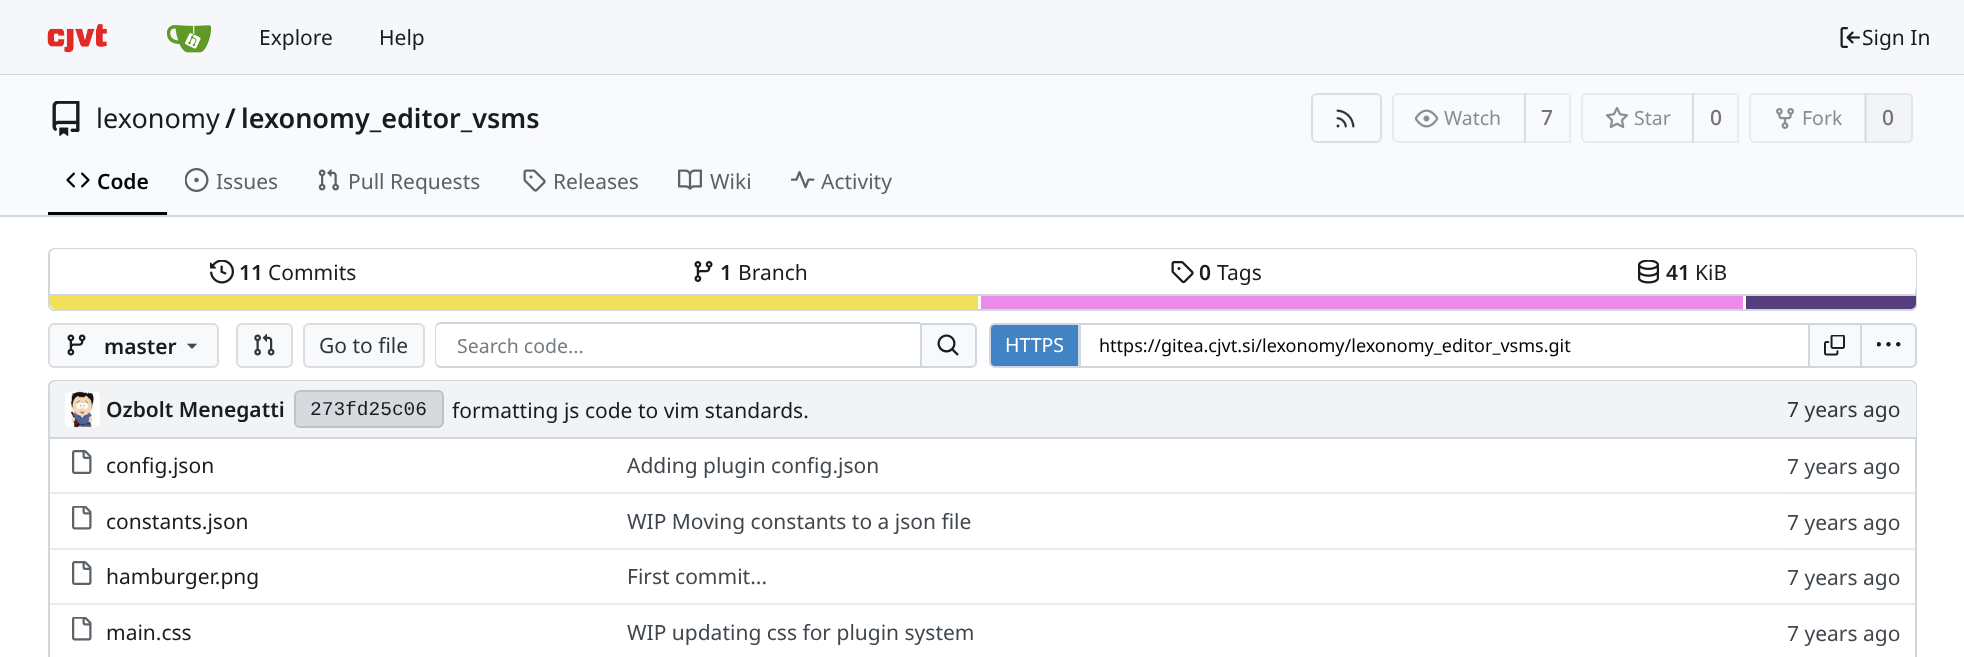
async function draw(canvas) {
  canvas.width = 1964;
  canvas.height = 657;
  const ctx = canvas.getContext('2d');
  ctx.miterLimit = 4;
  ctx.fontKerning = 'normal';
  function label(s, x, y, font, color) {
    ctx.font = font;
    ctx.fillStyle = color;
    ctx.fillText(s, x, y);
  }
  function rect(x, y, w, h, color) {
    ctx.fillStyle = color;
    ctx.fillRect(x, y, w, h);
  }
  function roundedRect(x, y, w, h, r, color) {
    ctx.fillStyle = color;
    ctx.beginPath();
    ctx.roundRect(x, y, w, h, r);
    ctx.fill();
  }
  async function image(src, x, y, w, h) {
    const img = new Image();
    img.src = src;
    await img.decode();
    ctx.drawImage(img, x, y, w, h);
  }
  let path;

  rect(0, 0, 1964, 657, '#fff');
  rect(0, 0, 1964, 74, '#f6f7fa');
  rect(0, 74, 1964, 1, '#d0d7de');
  await image('assets/img1.png', 47, 24, 60, 29);
  await image('assets/img2.png', 167, 25, 45, 28);
  label('Explore', 259, 45, '21px Noto Sans', '#181c21');
  label('Help', 379, 45, '21px Noto Sans', '#181c21');
  await image('assets/img3.png', 1840, 27, 20, 21);
  label('Sign In', 1862, 45, '21px Noto Sans', '#181c21');
  rect(0, 75, 1964, 140, '#f9fafb');
  await image('assets/img4.png', 52, 101, 28, 35);
  label('lexonomy', 96, 128, '27px Noto Sans', '#181c21');
  label('/', 225, 128, '600 27px Noto Sans', '#181c21');
  label('lexonomy_editor_vsms', 241, 128, '600 27px Noto Sans', '#181c21');
  ctx.beginPath();
  ctx.roundRect(1312, 94, 69, 48, 5);
  ctx.strokeStyle = '#dddee1';
  ctx.lineWidth = 2;
  ctx.stroke();
  await image('assets/img5.png', 1336, 109, 19, 19);
  ctx.beginPath();
  ctx.roundRect(1393, 94, 132, 48, [5, 0, 0, 5]);
  ctx.strokeStyle = '#e9eaed';
  ctx.stroke();
  await image('assets/img6.png', 1415, 109, 24, 19);
  label('Watch', 1444, 125, '19.5px Noto Sans', '#8a8e91');
  ctx.strokeStyle = '#0000170f';
  ctx.strokeRect(1525, 94, 45, 48);
  label('7', 1541, 125, '500 21px Noto Sans', '#717376');
  ctx.beginPath();
  ctx.roundRect(1582, 94, 111, 48, [5, 0, 0, 5]);
  ctx.strokeStyle = '#e9eaed';
  ctx.stroke();
  await image('assets/img7.png', 1605, 107, 24, 22);
  label('Star', 1634, 125, '19.5px Noto Sans', '#8a8e91');
  ctx.strokeStyle = '#0000170f';
  ctx.strokeRect(1693, 94, 45, 48);
  label('0', 1710, 125, '500 21px Noto Sans', '#717376');
  ctx.beginPath();
  ctx.roundRect(1750, 94, 115, 48, [5, 0, 0, 5]);
  ctx.strokeStyle = '#e9eaed';
  ctx.stroke();
  await image('assets/img8.png', 1776, 108, 18, 21);
  label('Fork', 1802, 125, '19.5px Noto Sans', '#8a8e91');
  rect(1865, 93, 48, 50, '#7071710a');
  ctx.beginPath();
  ctx.roundRect(1866, 94, 46, 48, [0, 5, 5, 0]);
  ctx.strokeStyle = '#70717e1c';
  ctx.stroke();
  label('0', 1882, 125, '500 21px Noto Sans', '#717376');
  rect(48, 212, 119, 3, '#01050a');
  await image('assets/img9.png', 66, 172, 24, 16);
  label('Code', 97, 189, '600 21px Noto Sans', '#01050a');
  await image('assets/img10.png', 185, 168, 24, 24);
  label('Issues', 216, 189, '21px Noto Sans', '#5b6167');
  await image('assets/img11.png', 318, 169, 21, 22);
  label('Pull Requests', 348, 189, '21px Noto Sans', '#5b6167');
  await image('assets/img12.png', 523, 169, 23, 23);
  label('Releases', 553, 189, '21px Noto Sans', '#5b6167');
  await image('assets/img13.png', 678, 169, 24, 21);
  label('Wiki', 710, 189, '21px Noto Sans', '#5b6167');
  await image('assets/img14.png', 791, 171, 24, 18);
  label('Activity', 821, 189, '21px Noto Sans', '#5b6167');
  rect(0, 215, 1964, 2, '#d0d7de');
  ctx.beginPath();
  ctx.roundRect(49, 249, 1867, 61, 5);
  ctx.strokeStyle = '#d0d7de';
  ctx.stroke();
  roundedRect(50, 249, 1866, 45, 6, '#fff');
  await image('assets/img15.png', 210, 260, 24, 24);
  label('11', 239, 280, '600 21px Noto Sans', '#181c21');
  label('Commits', 268, 280, '21px Noto Sans', '#181c21');
  await image('assets/img16.png', 694, 261, 19, 21);
  label('1', 720, 280, '600 21px Noto Sans', '#181c21');
  label('Branch', 738, 280, '21px Noto Sans', '#181c21');
  await image('assets/img17.png', 1171, 261, 23, 23);
  label('0', 1199, 280, '600 21px Noto Sans', '#181c21');
  label('Tags', 1217, 280, '21px Noto Sans', '#181c21');
  await image('assets/img18.png', 1638, 260, 21, 24);
  label('41', 1666, 280, '600 21px Noto Sans', '#181c21');
  label('KiB', 1695, 280, '21px Noto Sans', '#181c21');
  ctx.fillStyle = '#fff';
  ctx.beginPath();
  ctx.roundRect(50, 294, 1866, 15, [0, 0, 5, 5]);
  ctx.fill();
  rect(50, 294, 1866, 2, '#d0d7de');
  ctx.fillStyle = '#f1e05a';
  ctx.beginPath();
  ctx.roundRect(50, 296, 928, 13, [0, 0, 0, 5]);
  ctx.fill();
  rect(981, 296, 762, 13, '#eb8ceb');
  ctx.fillStyle = '#563d7c';
  ctx.beginPath();
  ctx.roundRect(1746, 296, 170, 13, [0, 0, 5, 0]);
  ctx.fill();
  ctx.fillStyle = '#f8f9fb';
  ctx.beginPath();
  ctx.roundRect(49, 324, 169, 43, 5);
  ctx.fill();
  ctx.strokeStyle = '#dcdde1';
  ctx.stroke();
  await image('assets/img19.png', 67, 334, 19, 22);
  label('master', 104, 354, '600 21px Noto Sans', '#181c21');
  await image('assets/img20.png', 187, 343, 10, 6);
  ctx.fillStyle = '#f8f9fb';
  ctx.beginPath();
  ctx.roundRect(237, 324, 55, 43, 5);
  ctx.fill();
  ctx.stroke();
  await image('assets/img21.png', 254, 334, 21, 22);
  ctx.beginPath();
  ctx.roundRect(304, 324, 120, 43, 5);
  ctx.fill();
  ctx.stroke();
  label('Go to file', 319, 353, '21px Noto Sans', '#30363b');
  ctx.fillStyle = '#d0d7de';
  path = new Path2D('M441 322H920V368H441C438 368 435 365 435 362V328C435 325 438 322 441 322ZM441 324H920V366H441C439 366 436 364 436 362V328C436 326 439 324 441 324Z');
  ctx.fill(path, 'evenodd');
  label('Search code...', 457, 353, '19.5px Noto Sans', '#747c84');
  ctx.fillStyle = '#f8f9fb';
  ctx.beginPath();
  ctx.roundRect(921, 324, 55, 43, [0, 5, 5, 0]);
  ctx.fill();
  ctx.strokeStyle = '#d0d7de';
  ctx.stroke();
  await image('assets/img22.png', 937, 334, 22, 22);
  ctx.fillStyle = '#4183c4';
  ctx.beginPath();
  ctx.roundRect(990, 324, 89, 43, [5, 0, 0, 5]);
  ctx.fill();
  ctx.stroke();
  label('HTTPS', 1005, 352, '19.5px Noto Sans', '#fff');
  rect(1079, 323, 729, 2, '#d0d7de');
  rect(1079, 366, 729, 2, '#d0d7de');
  rect(1080, 323, 1, 45, '#d0d7de');
  label('https://gitea.cjvt.si/lexonomy/lexonomy_editor_vsms.git', 1099, 352, '18px Noto Sans', '#01050a');
  ctx.fillStyle = '#f8f9fb';
  ctx.beginPath();
  ctx.rect(1809, 324, 52, 43);
  ctx.fill();
  ctx.stroke();
  await image('assets/img23.png', 1824, 335, 21, 21);
  ctx.beginPath();
  ctx.roundRect(1861, 324, 55, 43, [0, 5, 5, 0]);
  ctx.fill();
  ctx.stroke();
  await image('assets/img24.png', 1877, 342, 24, 5);
  ctx.beginPath();
  ctx.roundRect(49, 381, 1867, 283, 5);
  ctx.stroke();
  ctx.fillStyle = '#f1f3f5';
  ctx.beginPath();
  ctx.roundRect(50, 381, 1729, 57, [6, 0, 0, 0]);
  ctx.fill();
  rect(50, 437, 1729, 2, '#d0d7de');
  await image('assets/img25.png', 65, 391, 35, 37);
  label('Ozbolt Menegatti', 106, 417, '600 21px Noto Sans', '#181c21');
  roundedRect(294, 390, 150, 38, 6, '#d6dade');
  ctx.beginPath();
  ctx.roundRect(295, 391, 148, 36, 5);
  ctx.strokeStyle = '#0000171c';
  ctx.stroke();
  label('273fd25c06', 310, 415, '19.5px Liberation Mono', '#181c21');
  label('formatting js code to vim standards.', 452, 418, '21px Noto Sans', '#181c21');
  ctx.fillStyle = '#f1f3f5';
  ctx.beginPath();
  ctx.roundRect(1779, 381, 137, 57, [0, 6, 0, 0]);
  ctx.fill();
  rect(1779, 437, 137, 2, '#d0d7de');
  label('7 years ago', 1787, 417, '21px Noto Sans', '#30363b');
  await image('assets/img26.png', 72, 450, 20, 24);
  label('config.json', 106, 473, '21px Noto Sans', '#181c21');
  label('Adding plugin config.json', 627, 473, '21px Noto Sans', '#40474d');
  label('7 years ago', 1787, 474, '21px Noto Sans', '#40474d');
  rect(50, 492, 1729, 2, '#e8ebef');
  await image('assets/img27.png', 72, 506, 20, 24);
  label('constants.json', 106, 529, '21px Noto Sans', '#181c21');
  label('WIP Moving constants to a json file', 627, 529, '21px Noto Sans', '#40474d');
  rect(1779, 492, 137, 2, '#d0d7de80');
  label('7 years ago', 1787, 530, '21px Noto Sans', '#40474d');
  rect(50, 548, 1729, 2, '#e8ebef');
  await image('assets/img26.png', 72, 561, 20, 24);
  label('hamburger.png', 106, 584, '21px Noto Sans', '#181c21');
  label('First commit...', 627, 584, '21px Noto Sans', '#40474d');
  rect(1779, 548, 137, 2, '#d0d7de80');
  label('7 years ago', 1787, 585, '21px Noto Sans', '#40474d');
  rect(50, 603, 1729, 2, '#e8ebef');
  await image('assets/img27.png', 72, 617, 20, 24);
  label('main.css', 106, 640, '21px Noto Sans', '#181c21');
  label('WIP updating css for plugin system', 627, 640, '21px Noto Sans', '#40474d');
  rect(1779, 603, 137, 2, '#d0d7de80');
  label('7 years ago', 1787, 641, '21px Noto Sans', '#40474d');
}

draw(document.querySelector('canvas'));
